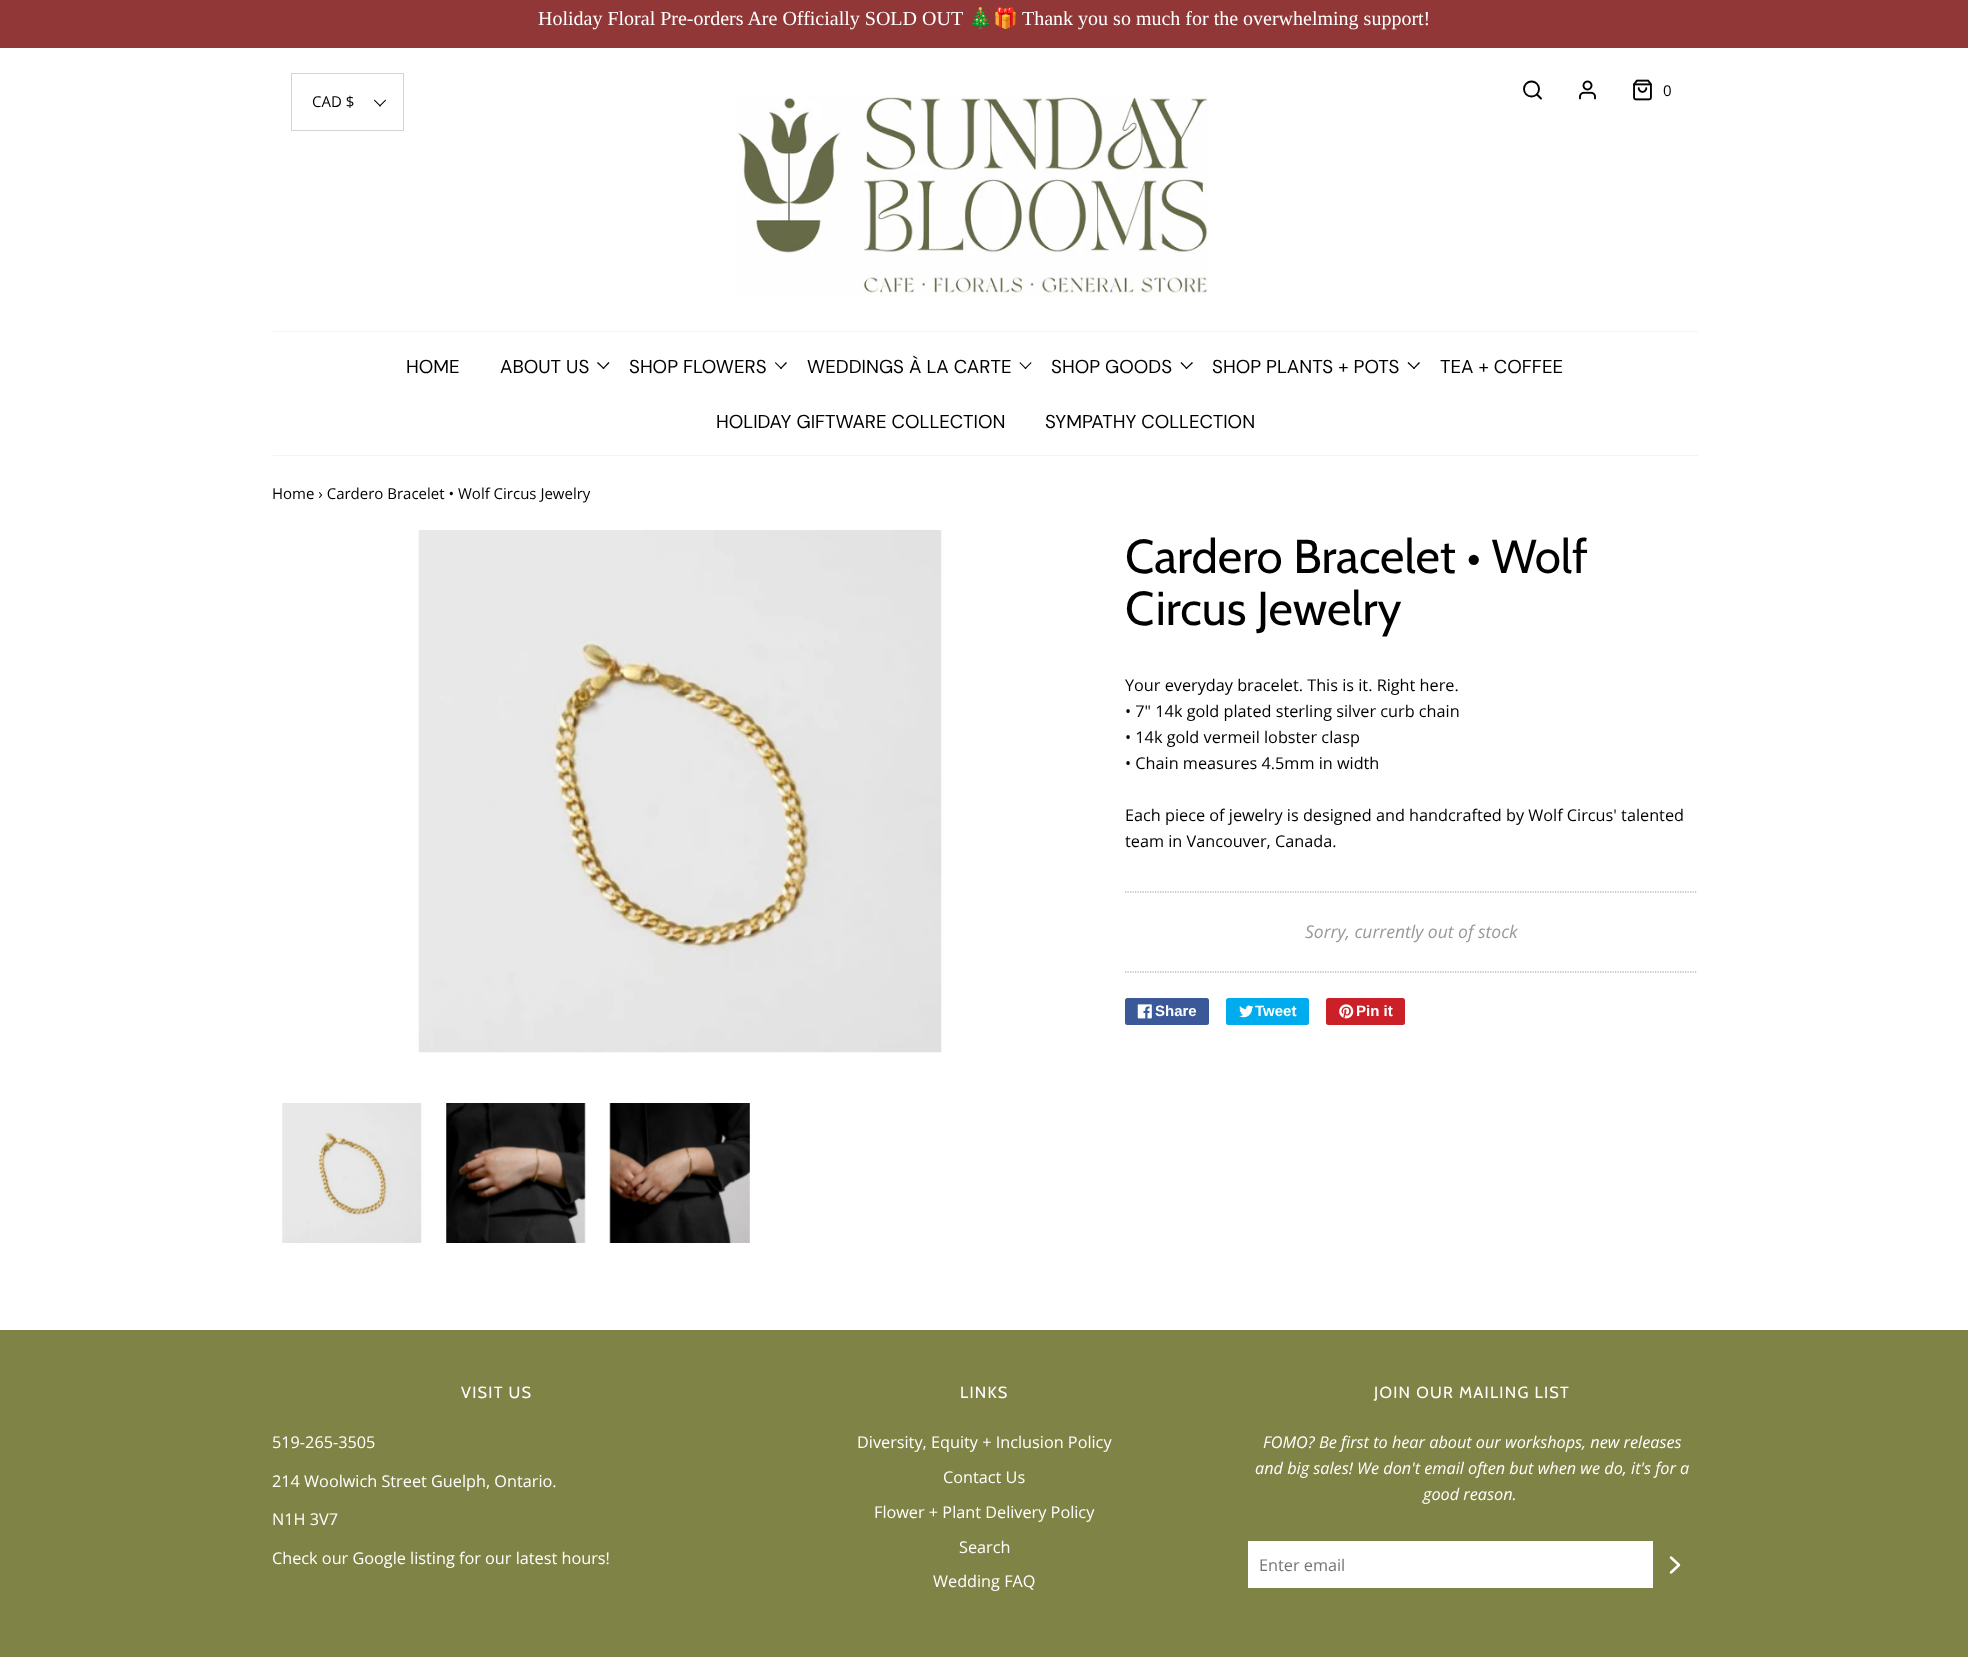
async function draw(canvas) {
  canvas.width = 1968;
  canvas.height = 1657;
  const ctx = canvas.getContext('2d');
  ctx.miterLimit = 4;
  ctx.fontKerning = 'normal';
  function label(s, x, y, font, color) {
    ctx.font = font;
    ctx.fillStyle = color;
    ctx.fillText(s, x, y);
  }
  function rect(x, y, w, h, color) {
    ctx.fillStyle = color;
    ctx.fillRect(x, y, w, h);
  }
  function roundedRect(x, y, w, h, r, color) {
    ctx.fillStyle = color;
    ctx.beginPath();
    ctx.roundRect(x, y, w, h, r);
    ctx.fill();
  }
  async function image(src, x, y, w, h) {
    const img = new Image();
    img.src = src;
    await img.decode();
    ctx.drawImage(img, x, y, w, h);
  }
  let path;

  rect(0, 0, 1968, 1657, '#fff');
  rect(0, 0, 1968, 48, '#923737');
  label('Holiday Floral Pre-orders Are Officially SOLD OUT', 538, 25, '20px Liberation Serif', '#fff');
  label('🎄🎁', 968, 25, '20px Noto Color Emoji', '#fff');
  label('Thank you so much for the overwhelming support!', 1022, 25, '20px Liberation Serif', '#fff');
  ctx.beginPath();
  ctx.arc(1531.5, 89, 7.5, 0, 2 * Math.PI);
  ctx.strokeStyle = '#000';
  ctx.lineWidth = 1.9;
  ctx.stroke();
  path = new Path2D('M1541 98.5L1537 94.5');
  ctx.lineCap = 'round';
  ctx.lineJoin = 'round';
  ctx.stroke(path);
  await image('assets/img1.png', 1579, 80, 17, 20);
  await image('assets/img2.png', 1633, 79, 19, 22);
  label('0', 1663, 96, '15px Open Sans', '#000');
  ctx.strokeStyle = '#d4d4d4';
  ctx.lineWidth = 1;
  ctx.lineJoin = 'miter';
  ctx.strokeRect(291.5, 73.5, 112, 57);
  ctx.save();
  ctx.beginPath();
  ctx.rect(313, 90, 70, 24);
  ctx.clip();
  label('CAD $', 312, 107, '15px Open Sans', '#000');
  ctx.restore();
  path = new Path2D('M385.5 99.5L386 100.5L380 106.5L379 106Z');
  ctx.fill(path);
  path = new Path2D('M374.5 99.5L381 106L380 106.5L374 100.5Z');
  ctx.fill(path);
  await image('assets/img3.png', 737, 95, 472, 201);
  rect(273, 331, 1425, 1, '#f3f3f3');
  rect(273, 455, 1425, 1, '#f3f3f3');
  label('HOME', 406, 373, '18.75px DM Sans', '#000');
  label('ABOUT US', 500, 373, '18.75px DM Sans', '#000');
  path = new Path2D('M608.5 362L609.5 363L603.5 369L602.5 368.5Z');
  ctx.fill(path);
  path = new Path2D('M598 362L604.5 368.5L603.5 369L597 363Z');
  ctx.fill(path);
  label('SHOP FLOWERS', 629, 373, '18.75px DM Sans', '#000');
  path = new Path2D('M786 362L787 363L781 369L780 368.5Z');
  ctx.fill(path);
  path = new Path2D('M775.5 362L782 368.5L781 369L775 363Z');
  ctx.fill(path);
  label('WEDDINGS À LA CARTE', 807, 373, '18.75px DM Sans', '#000');
  path = new Path2D('M1031 362L1031.5 363L1025.5 369L1024.5 368.5Z');
  ctx.fill(path);
  path = new Path2D('M1020 362L1026.5 368.5L1025.5 369L1019.5 363Z');
  ctx.fill(path);
  label('SHOP GOODS', 1051, 373, '18.75px DM Sans', '#000');
  path = new Path2D('M1192 362L1193 363L1186.5 369L1185.5 368.5Z');
  ctx.fill(path);
  path = new Path2D('M1181.5 362L1187.5 368.5L1186.5 369L1180.5 363Z');
  ctx.fill(path);
  label('SHOP PLANTS + POTS', 1212, 373, '18.75px DM Sans', '#000');
  path = new Path2D('M1419 362L1420 363L1414 369L1413 368.5Z');
  ctx.fill(path);
  path = new Path2D('M1408.5 362L1415 368.5L1414 369L1407.5 363Z');
  ctx.fill(path);
  label('TEA + COFFEE', 1440, 373, '18.75px DM Sans', '#000');
  label('HOLIDAY GIFTWARE COLLECTION', 716, 428, '18.75px DM Sans', '#000');
  label('SYMPATHY COLLECTION', 1045, 428, '18.75px DM Sans', '#000');
  label('Home › Cardero Bracelet • Wolf Circus Jewelry', 272, 499, '15px Open Sans', '#000');
  await image('assets/img4.png', 418, 530, 524, 523);
  await image('assets/img5.png', 282, 1103, 140, 140);
  await image('assets/img6.png', 446, 1103, 140, 140);
  await image('assets/img7.png', 609, 1103, 141, 140);
  label('Cardero Bracelet • Wolf', 1125, 573, '47.5px Cabin', '#000');
  label('Circus Jewelry', 1125, 625, '47.5px Cabin', '#000');
  label('Your everyday bracelet. This is it. Right here.', 1125, 691, '16.25px Open Sans', '#000');
  label('• 7" 14k gold plated sterling silver curb chain', 1125, 717, '16.25px Open Sans', '#000');
  label('• 14k gold vermeil lobster clasp', 1125, 743, '16.25px Open Sans', '#000');
  label('• Chain measures 4.5mm in width', 1125, 769, '16.25px Open Sans', '#000');
  label('Each piece of jewelry is designed and handcrafted by Wolf Circus\' talented', 1125, 821, '16.25px Open Sans', '#000');
  label('team in Vancouver, Canada.', 1125, 847, '16.25px Open Sans', '#000');
  path = new Path2D('M1125 892H1697.5');
  ctx.strokeStyle = '#999';
  ctx.lineWidth = 1.2;
  ctx.lineCap = 'butt';
  ctx.setLineDash([1.25, 1.25]);
  ctx.stroke(path);
  path = new Path2D('M1125 972H1697.5');
  ctx.stroke(path);
  label('Sorry, currently out of stock', 1305, 938, 'italic 17.5px Open Sans', '#999');
  roundedRect(1125, 998, 84, 27, 2.5, '#3b5998');
  await image('assets/img8.png', 1137, 1004, 15, 15);
  label('Share', 1155, 1016, 'bold 15px Liberation Sans', '#fff');
  roundedRect(1226, 998, 83, 27, 2.5, '#00aced');
  await image('assets/img9.png', 1239, 1005, 15, 13);
  label('Tweet', 1255, 1016, 'bold 15px Liberation Sans', '#fff');
  roundedRect(1326, 998, 79, 27, 2.5, '#cb2027');
  await image('assets/img10.png', 1339, 1004, 15, 15);
  label('Pin it', 1356, 1016, 'bold 15px Liberation Sans', '#fff');
  rect(0, 1330, 1968, 327, '#7f8345');
  ctx.letterSpacing = '1.25px';
  label('VISIT US', 461, 1398, '16.25px Cabin', '#fff');
  ctx.letterSpacing = '0px';
  label('519-265-3505', 272, 1448, '16.25px Open Sans', '#fff');
  label('214 Woolwich Street Guelph, Ontario.', 272, 1487, '16.25px Open Sans', '#fff');
  label('N1H 3V7', 272, 1525, '16.25px Open Sans', '#fff');
  label('Check our Google listing for our latest hours!', 272, 1564, '16.25px Open Sans', '#fff');
  ctx.letterSpacing = '1.25px';
  label('LINKS', 960, 1398, '16.25px Cabin', '#fff');
  ctx.letterSpacing = '0px';
  label('Diversity, Equity + Inclusion Policy', 857, 1448, '16.25px Open Sans', '#fff');
  label('Contact Us', 943, 1483, '16.25px Open Sans', '#fff');
  label('Flower + Plant Delivery Policy', 874, 1518, '16.25px Open Sans', '#fff');
  label('Search', 959, 1553, '16.25px Open Sans', '#fff');
  label('Wedding FAQ', 933, 1587, '16.25px Open Sans', '#fff');
  ctx.letterSpacing = '1.25px';
  label('JOIN OUR MAILING LIST', 1374, 1398, '16.25px Cabin', '#fff');
  ctx.letterSpacing = '0px';
  label('FOMO? Be first to hear about our workshops, new releases', 1263, 1448, 'italic 16.25px Open Sans', '#fff');
  label('and big sales! We don\'t email often but when we do, it\'s for a', 1255, 1474, 'italic 16.25px Open Sans', '#fff');
  label('good reason.', 1423, 1500, 'italic 16.25px Open Sans', '#fff');
  rect(1248, 1541, 405, 47, '#fff');
  label('Enter email', 1259, 1571, '16.25px Open Sans', '#757575');
  path = new Path2D('M1671 1572.5L1679 1565L1671 1557.5');
  ctx.strokeStyle = '#fff';
  ctx.lineWidth = 2.5;
  ctx.lineCap = 'round';
  ctx.lineJoin = 'round';
  ctx.setLineDash([]);
  ctx.stroke(path);
}

draw(document.querySelector('canvas'));
